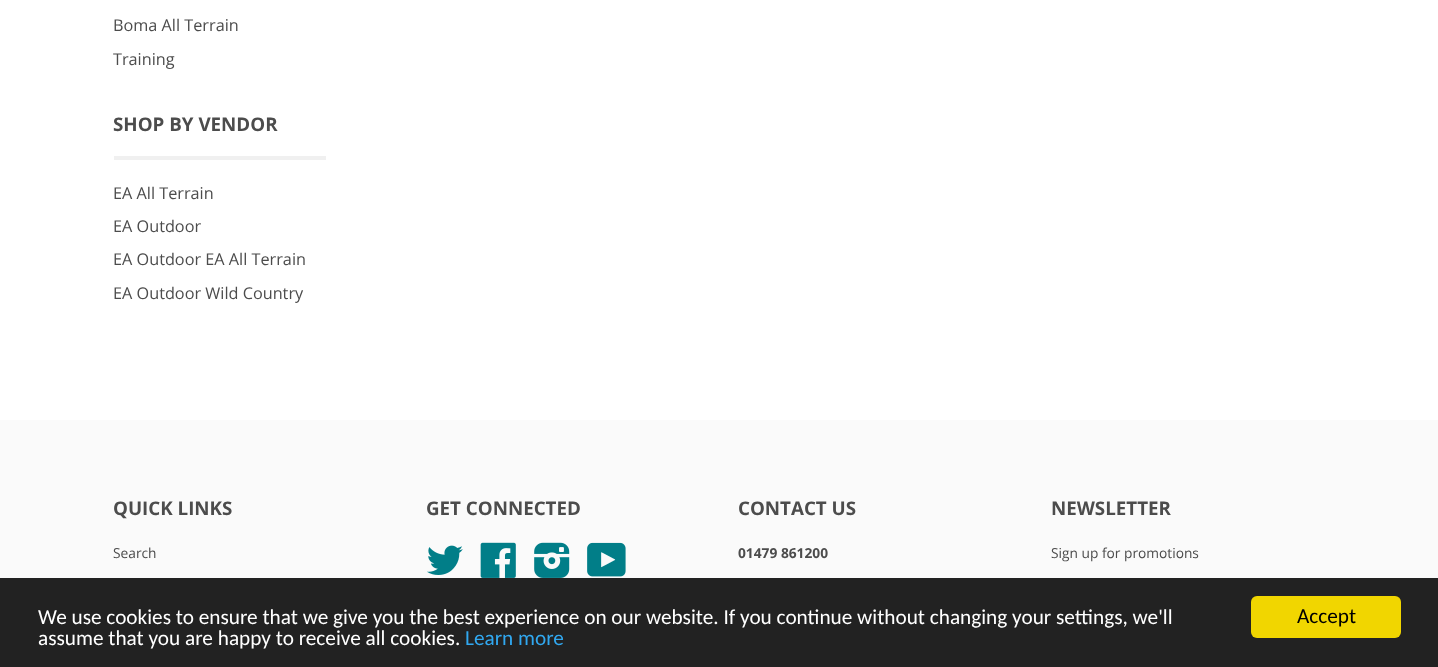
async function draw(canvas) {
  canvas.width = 1438;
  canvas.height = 667;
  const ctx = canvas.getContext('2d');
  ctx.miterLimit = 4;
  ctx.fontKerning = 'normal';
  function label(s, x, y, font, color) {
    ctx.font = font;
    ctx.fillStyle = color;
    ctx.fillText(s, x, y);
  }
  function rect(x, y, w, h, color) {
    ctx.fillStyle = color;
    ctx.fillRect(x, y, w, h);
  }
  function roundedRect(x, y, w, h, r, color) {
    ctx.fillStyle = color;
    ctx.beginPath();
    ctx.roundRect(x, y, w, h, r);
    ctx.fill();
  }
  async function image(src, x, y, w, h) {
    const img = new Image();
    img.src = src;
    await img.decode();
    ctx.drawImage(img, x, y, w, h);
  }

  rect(0, 0, 1438, 667, '#fff');
  label('Boma All Terrain', 113, 31, '16.25px Open Sans', '#4c4c4c');
  label('Training', 113, 65, '16.25px Open Sans', '#4c4c4c');
  rect(114, 156, 212, 4, '#f0f0f0');
  label('SHOP BY VENDOR', 113, 131, 'bold 18.75px Open Sans', '#4c4c4c');
  label('EA All Terrain', 113, 199, '16.25px Open Sans', '#4c4c4c');
  label('EA Outdoor', 113, 232, '16.25px Open Sans', '#4c4c4c');
  label('EA Outdoor EA All Terrain', 113, 265, '16.25px Open Sans', '#4c4c4c');
  label('EA Outdoor Wild Country', 113, 299, '16.25px Open Sans', '#4c4c4c');
  rect(0, 420, 1438, 158, '#fafafa');
  label('QUICK LINKS', 113, 515, 'bold 18.75px Open Sans', '#4c4c4c');
  label('Search', 113, 558, '13.75px Open Sans', '#4c4c4c');
  label('GET CONNECTED', 426, 515, 'bold 18.75px Open Sans', '#4c4c4c');
  await image('assets/img1.png', 427, 545, 36, 30);
  await image('assets/img2.png', 480, 542, 36, 36);
  await image('assets/img3.png', 534, 542, 36, 36);
  await image('assets/img4.png', 587, 542, 39, 35);
  label('CONTACT US', 738, 515, 'bold 18.75px Open Sans', '#4c4c4c');
  label('01479 861200', 738, 558, 'bold 13.75px Open Sans', '#4c4c4c');
  label('NEWSLETTER', 1051, 515, 'bold 18.75px Open Sans', '#4c4c4c');
  label('Sign up for promotions', 1051, 558, '13.75px Open Sans', '#4c4c4c');
  rect(0, 578, 1438, 89, '#222');
  label('We use cookies to ensure that we give you the best experience on our website. If you continue without changing your settings, we\'ll', 38, 624, '21.25px Carlito', '#fff');
  label('assume that you are happy to receive all cookies.', 38, 645, '21.25px Carlito', '#fff');
  label('Learn more', 465, 645, '21.25px Carlito', '#31a8f0');
  roundedRect(1251, 596, 150, 42, 6, '#f1d600');
  label('Accept', 1297, 623, '21.25px Carlito', '#000');
}

draw(document.querySelector('canvas'));
